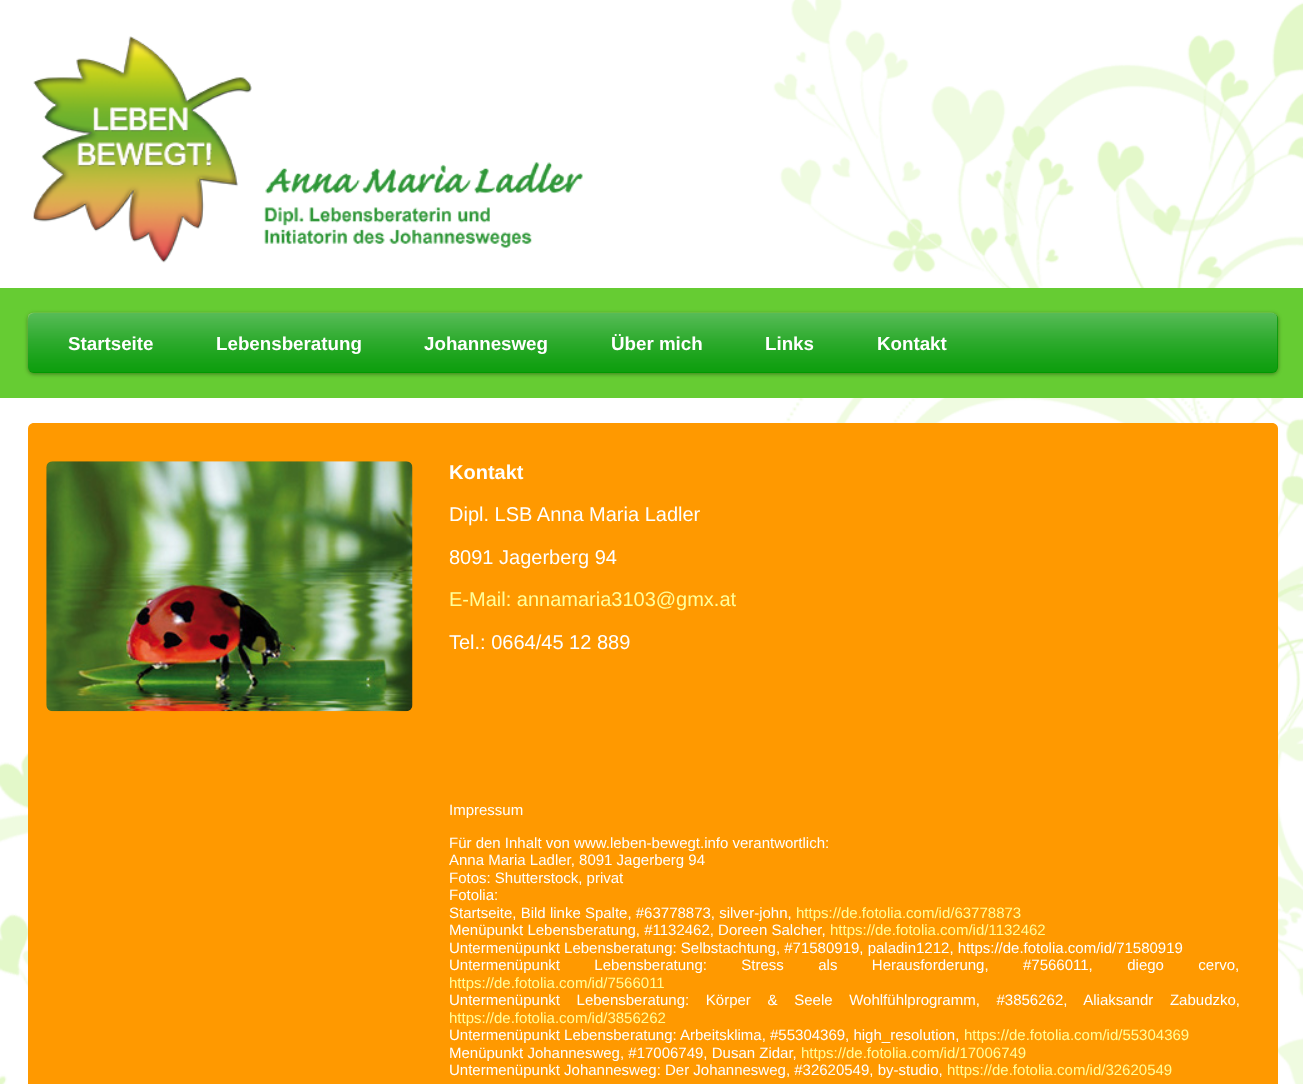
async function draw(canvas) {
  canvas.width = 1303;
  canvas.height = 1084;
  const ctx = canvas.getContext('2d');
  ctx.miterLimit = 4;
  ctx.fontKerning = 'normal';
  function label(s, x, y, font, color) {
    ctx.font = font;
    ctx.fillStyle = color;
    ctx.fillText(s, x, y);
  }
  function rect(x, y, w, h, color) {
    ctx.fillStyle = color;
    ctx.fillRect(x, y, w, h);
  }
  function roundedRect(x, y, w, h, r, color) {
    ctx.fillStyle = color;
    ctx.beginPath();
    ctx.roundRect(x, y, w, h, r);
    ctx.fill();
  }
  async function image(src, x, y, w, h) {
    const img = new Image();
    img.src = src;
    await img.decode();
    ctx.drawImage(img, x, y, w, h);
  }
  let path;

  rect(0, 0, 1303, 1084, '#fff');
  await image('assets/img1.png', 0, 0, 1303, 1084);
  await image('assets/img2.png', 33, 36, 550, 227);
  rect(0, 288, 1303, 110, '#6c3');
  ctx.fillStyle = '#00000066';
  ctx.filter = 'blur(2px)';
  ctx.beginPath();
  ctx.roundRect(28, 314, 1250, 60, 6);
  ctx.fill();
  ctx.filter = 'none';
  roundedRect(28, 313, 1250, 60, 6, '#090');
  await image('assets/img3.png', 27, 312, 1251, 60);
  label('Startseite', 68, 350, 'bold 18.75px Liberation Sans', '#fff');
  label('Lebensberatung', 216, 350, 'bold 18.75px Liberation Sans', '#fff');
  label('Johannesweg', 424, 350, 'bold 18.75px Liberation Sans', '#fff');
  label('Über mich', 611, 350, 'bold 18.75px Liberation Sans', '#fff');
  label('Links', 765, 350, 'bold 18.75px Liberation Sans', '#fff');
  label('Kontakt', 877, 350, 'bold 18.75px Liberation Sans', '#fff');
  ctx.fillStyle = '#f90';
  path = new Path2D('M34 423H431V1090H34C30.5 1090 28 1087.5 28 1084V429C28 425.5 30.5 423 34 423Z');
  ctx.fill(path);
  await image('assets/img4.png', 46, 461, 367, 251);
  path = new Path2D('M431 423H1272C1275.5 423 1278 425.5 1278 429V1084C1278 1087.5 1275.5 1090 1272 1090H431Z');
  ctx.fill(path);
  label('Kontakt', 449, 479, 'bold 20px Liberation Sans', '#fff');
  label('Dipl. LSB Anna Maria Ladler', 449, 521, '20px Liberation Sans', '#fff');
  label('8091 Jagerberg 94', 449, 564, '20px Liberation Sans', '#fff');
  label('E-Mail: annamaria3103@gmx.at', 449, 606, '20px Liberation Sans', '#ff9');
  label('Tel.: 0664/45 12 889', 449, 649, '20px Liberation Sans', '#fff');
  label('Impressum', 449, 815, '15px Liberation Sans', '#fff');
  label('Für den Inhalt von www.leben-bewegt.info verantwortlich:', 449, 848, '15px Liberation Sans', '#fff');
  label('Anna Maria Ladler, 8091 Jagerberg 94', 449, 865, '15px Liberation Sans', '#fff');
  label('Fotos: Shutterstock, privat', 449, 883, '15px Liberation Sans', '#fff');
  label('Fotolia:', 449, 900, '15px Liberation Sans', '#fff');
  label('Startseite, Bild linke Spalte, #63778873, silver-john,', 449, 918, '15px Liberation Sans', '#fff');
  label('https://de.fotolia.com/id/63778873', 796, 918, '15px Liberation Sans', '#ff9');
  label('Menüpunkt Lebensberatung, #1132462, Doreen Salcher,', 449, 935, '15px Liberation Sans', '#fff');
  label('https://de.fotolia.com/id/1132462', 830, 935, '15px Liberation Sans', '#ff9');
  label('Untermenüpunkt Lebensberatung: Selbstachtung, #71580919, paladin1212, https://de.fotolia.com/id/71580919', 449, 953, '15px Liberation Sans', '#fff');
  ctx.wordSpacing = '30.25px';
  label('Untermenüpunkt Lebensberatung: Stress als Herausforderung, #7566011, diego cervo,', 449, 970, '15px Liberation Sans', '#fff');
  ctx.wordSpacing = '0px';
  label('https://de.fotolia.com/id/7566011', 449, 988, '15px Liberation Sans', '#ff9');
  ctx.wordSpacing = '12.5px';
  label('Untermenüpunkt Lebensberatung: Körper & Seele Wohlfühlprogramm, #3856262, Aliaksandr Zabudzko,', 449, 1005, '15px Liberation Sans', '#fff');
  ctx.wordSpacing = '0px';
  label('https://de.fotolia.com/id/3856262', 449, 1023, '15px Liberation Sans', '#ff9');
  label('Untermenüpunkt Lebensberatung: Arbeitsklima, #55304369, high_resolution,', 449, 1040, '15px Liberation Sans', '#fff');
  label('https://de.fotolia.com/id/55304369', 964, 1040, '15px Liberation Sans', '#ff9');
  label('Menüpunkt Johannesweg, #17006749, Dusan Zidar,', 449, 1058, '15px Liberation Sans', '#fff');
  label('https://de.fotolia.com/id/17006749', 801, 1058, '15px Liberation Sans', '#ff9');
  label('Untermenüpunkt Johannesweg: Der Johannesweg, #32620549, by-studio,', 449, 1075, '15px Liberation Sans', '#fff');
  label('https://de.fotolia.com/id/32620549', 947, 1075, '15px Liberation Sans', '#ff9');
}

draw(document.querySelector('canvas'));
